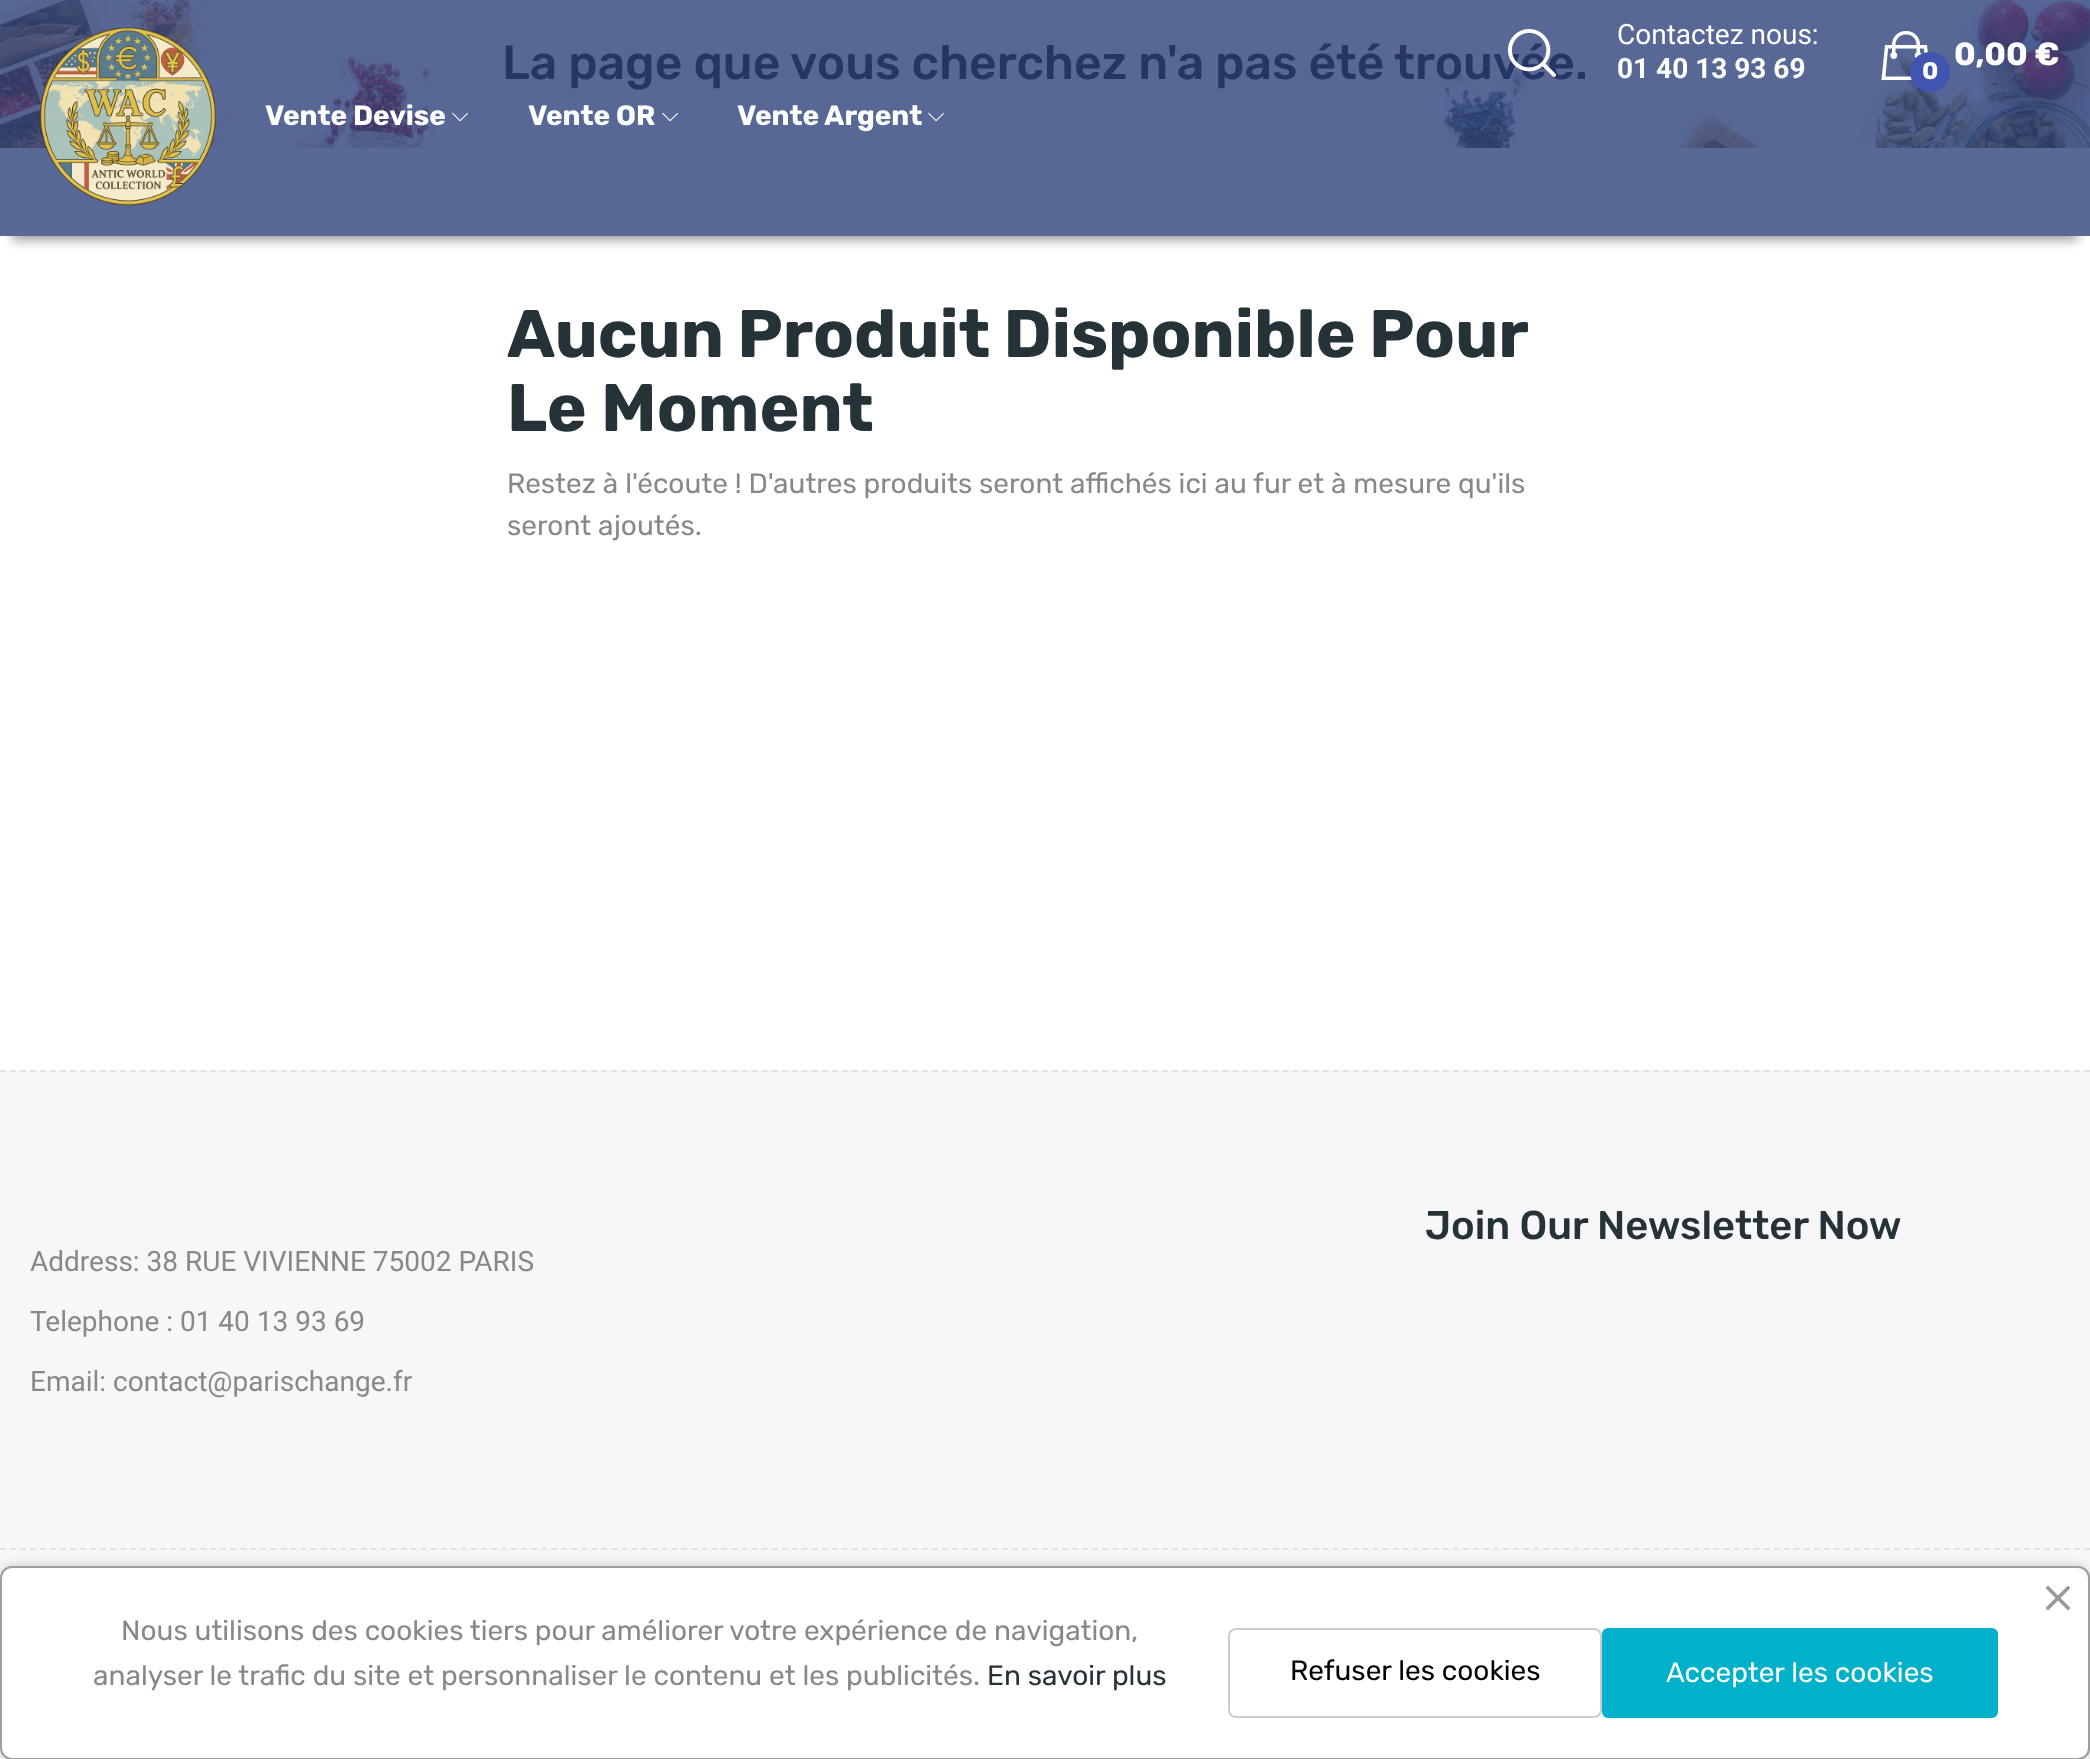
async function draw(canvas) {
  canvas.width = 2090;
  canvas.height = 1759;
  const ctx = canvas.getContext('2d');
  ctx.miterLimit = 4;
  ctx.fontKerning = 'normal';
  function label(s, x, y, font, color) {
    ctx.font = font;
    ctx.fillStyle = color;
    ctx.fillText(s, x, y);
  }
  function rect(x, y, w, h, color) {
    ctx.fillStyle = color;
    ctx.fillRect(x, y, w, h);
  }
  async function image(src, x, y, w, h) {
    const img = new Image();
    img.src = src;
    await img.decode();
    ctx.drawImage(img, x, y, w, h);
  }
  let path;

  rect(0, 0, 2090, 1759, '#fff');
  rect(0, 148, 2090, 88, '#586897');
  await image('assets/img5.png', 0, 0, 2090, 148);
  ctx.save();
  ctx.beginPath();
  ctx.rect(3, 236, 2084, 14);
  ctx.clip();
  ctx.fillStyle = '#00000066';
  ctx.filter = 'blur(6px)';
  ctx.beginPath();
  ctx.rect(12, 28, 2066, 212);
  ctx.fill();
  ctx.filter = 'none';
  ctx.restore();
  await image('assets/img1.png', 40, 27, 176, 179);
  label('Vente Devise', 265, 125, 'bold 28px Rubik', '#fff');
  await image('assets/img2.png', 452, 112, 16, 10);
  label('Vente OR', 528, 125, 'bold 28px Rubik', '#fff');
  await image('assets/img2.png', 662, 112, 16, 10);
  label('Vente Argent', 737, 125, 'bold 28px Rubik', '#fff');
  await image('assets/img2.png', 928, 112, 16, 10);
  label('La page que vous cherchez n\'a pas été trouvée.', 502, 79, '500 48px Rubik', '#253564');
  await image('assets/img3.png', 1508, 29, 48, 48);
  label('Contactez nous:', 1617, 44, '28px Roboto', '#fff');
  label('01 40 13 93 69', 1617, 78, 'bold 28px Roboto', '#fff');
  await image('assets/img4.png', 1881, 31, 47, 49);
  label('0,00 €', 1954, 65, 'bold 32px Rubik', '#fff');
  ctx.fillStyle = '#4054b2';
  ctx.beginPath();
  ctx.arc(1930, 72, 20, 0, 2 * Math.PI);
  ctx.fill();
  label('0', 1922, 79, 'bold 24px Rubik', '#fff');
  ctx.wordSpacing = '-1px';
  label('Aucun Produit Disponible Pour', 507, 357, 'bold 67.25px Rubik', '#253237');
  ctx.wordSpacing = '0px';
  label('Le Moment', 507, 431, 'bold 67.25px Rubik', '#253237');
  label('Restez à l\'écoute ! D\'autres produits seront affichés ici au fur et à mesure qu\'ils', 507, 493, '28px Rubik', '#888');
  label('seront ajoutés.', 507, 535, '28px Rubik', '#888');
  rect(0, 1070, 2090, 689, '#f7f7f7');
  path = new Path2D('M0 1071H2090');
  ctx.strokeStyle = '#e1e1e1';
  ctx.lineWidth = 2;
  ctx.setLineDash([6, 4.02]);
  ctx.stroke(path);
  label('Join Our Newsletter Now', 1425, 1239, '500 40px Rubik', '#253237');
  label('Address: 38 RUE VIVIENNE 75002 PARIS', 30, 1271, '28px Roboto', '#888');
  label('Telephone : 01 40 13 93 69', 30, 1331, '28px Roboto', '#888');
  label('Email: contact@parischange.fr', 30, 1391, '28px Roboto', '#888');
  path = new Path2D('M0 1549H2090');
  ctx.stroke(path);
  ctx.fillStyle = '#9e9e9e';
  ctx.filter = 'blur(7px)';
  ctx.beginPath();
  ctx.roundRect(4, 1570, 2082, 186, 8);
  ctx.fill();
  ctx.filter = 'none';
  ctx.fillStyle = '#fff';
  ctx.beginPath();
  ctx.roundRect(1, 1567, 2088, 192, 11);
  ctx.fill();
  ctx.strokeStyle = '#9e9e9e';
  ctx.setLineDash([]);
  ctx.stroke();
  ctx.fillStyle = '#999';
  path = new Path2D('M2045.5 1608L2068 1585.5L2070.5 1588L2048 1610.5Z');
  ctx.fill(path);
  path = new Path2D('M2048 1585.5L2070.5 1608L2068 1610.5L2045.5 1588Z');
  ctx.fill(path);
  label('Nous utilisons des cookies tiers pour améliorer votre expérience de navigation,', 121, 1640, '28px Rubik', '#888');
  label('analyser le trafic du site et personnaliser le contenu et les publicités.', 93, 1685, '28px Rubik', '#888');
  label('En savoir plus', 987, 1685, '28px Rubik', '#253237');
  ctx.beginPath();
  ctx.roundRect(1229, 1629, 372, 88, 7);
  ctx.strokeStyle = '#ccc';
  ctx.stroke();
  label('Refuser les cookies', 1290, 1680, '28px Rubik', '#000');
  ctx.fillStyle = '#00b1c9';
  ctx.beginPath();
  ctx.roundRect(1604, 1630, 392, 86, 4);
  ctx.fill();
  ctx.strokeStyle = '#00b1c9';
  ctx.lineWidth = 4;
  ctx.stroke();
  label('Accepter les cookies', 1666, 1682, '28px Rubik', '#fff');
}

draw(document.querySelector('canvas'));
